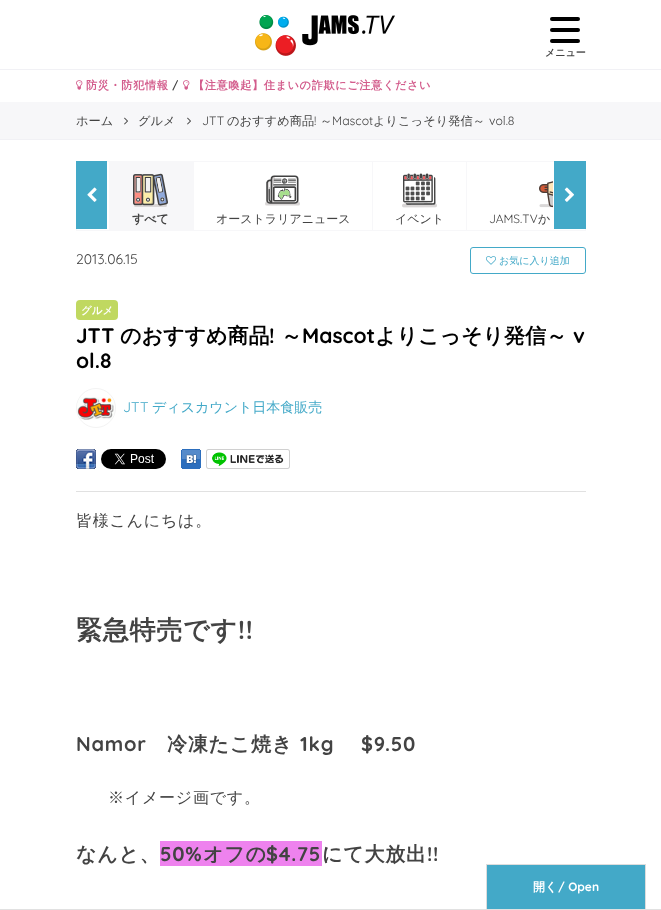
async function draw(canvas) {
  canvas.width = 661;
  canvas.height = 910;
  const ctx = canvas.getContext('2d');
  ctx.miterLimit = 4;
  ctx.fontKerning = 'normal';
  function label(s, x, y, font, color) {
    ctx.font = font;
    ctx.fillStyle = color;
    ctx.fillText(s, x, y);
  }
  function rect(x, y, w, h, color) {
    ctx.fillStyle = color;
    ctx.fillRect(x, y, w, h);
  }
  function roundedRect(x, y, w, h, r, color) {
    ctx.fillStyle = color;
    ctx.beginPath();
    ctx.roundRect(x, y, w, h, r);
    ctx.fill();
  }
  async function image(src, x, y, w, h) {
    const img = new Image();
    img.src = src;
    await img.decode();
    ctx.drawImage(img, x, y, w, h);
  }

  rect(0, 0, 661, 910, '#fff');
  rect(0, 69, 661, 1, '#f1f1f5');
  await image('assets/img1.png', 255, 15, 140, 41);
  roundedRect(550, 17, 30, 4, 2, '#000');
  roundedRect(550, 28, 30, 4, 2, '#000');
  roundedRect(550, 39, 30, 4, 2, '#000');
  label('メニュー', 545, 56, 'bold 10px WenQuanYi Zen Hei', '#434343');
  await image('assets/img2.png', 76, 80, 7, 10);
  ctx.letterSpacing = '0.6px';
  label('防災・防犯情報', 86, 89, 'bold 11.2px WenQuanYi Zen Hei', '#d35c8c');
  label('/', 172, 89, 'bold 11.2px Quicksand', '#434343');
  await image('assets/img2.png', 183, 80, 7, 10);
  label('【注意喚起】住まいの詐欺にご注意ください', 193, 89, 'bold 11.2px WenQuanYi Zen Hei', '#d35c8c');
  rect(0, 102, 661, 37, '#f7f7f9');
  rect(0, 139, 661, 1, '#f1f1f5');
  ctx.letterSpacing = '0px';
  label('ホーム', 76, 125, '500 12.25px WenQuanYi Zen Hei', '#434343');
  await image('assets/img3.png', 124, 117, 4, 8);
  label('グルメ', 138, 125, '500 12.25px WenQuanYi Zen Hei', '#434343');
  await image('assets/img3.png', 187, 117, 4, 8);
  label('JTT', 202, 125, '12.25px Quicksand', '#434343');
  label('のおすすめ商品', 227, 125, '500 12.25px WenQuanYi Zen Hei', '#434343');
  label('!', 314, 125, '12.25px Quicksand', '#434343');
  label('～', 320, 125, '500 12.25px WenQuanYi Zen Hei', '#434343');
  label('Mascot', 332, 125, '12.25px Quicksand', '#434343');
  label('よりこっそり発信～', 373, 125, '500 12.25px WenQuanYi Zen Hei', '#434343');
  label('vol.8', 489, 125, '12.25px Quicksand', '#434343');
  ctx.strokeStyle = '#f7f7f9';
  ctx.strokeRect(76.5, 161.5, 509, 69);
  rect(76, 161, 31, 68, '#43a9c8');
  await image('assets/img4.png', 87, 187, 10, 15);
  rect(109, 162, 85, 68, '#f7f7f9');
  await image('assets/img5.png', 133, 173, 35, 34);
  label('すべて', 132, 223, 'bold 12px WenQuanYi Zen Hei', '#434343');
  rect(372, 162, 1, 68, '#f7f7f9');
  await image('assets/img6.png', 265, 175, 35, 31);
  label('オーストラリアニュース', 216, 223, '500 12px WenQuanYi Zen Hei', '#434343');
  rect(466, 162, 1, 68, '#f7f7f9');
  await image('assets/img7.png', 402, 173, 35, 35);
  label('イベント', 395, 223, '500 12px WenQuanYi Zen Hei', '#434343');
  await image('assets/img8.png', 539, 181, 14, 27);
  label('JAMS.TV', 489, 223, '12px Quicksand', '#434343');
  label('か', 538, 223, '500 12px WenQuanYi Zen Hei', '#434343');
  rect(554, 161, 32, 68, '#43a9c8');
  await image('assets/img9.png', 564, 187, 10, 15);
  rect(76, 491, 510, 1, '#e1e1e1');
  label('2013.06.15', 76, 264, '14px Quicksand', '#434343');
  ctx.beginPath();
  ctx.roundRect(470.5, 247.5, 115, 26, 2.5);
  ctx.strokeStyle = '#43a9c8';
  ctx.stroke();
  await image('assets/img10.png', 486, 256, 10, 9);
  label('お気に入り追加', 499, 264, '500 10px WenQuanYi Zen Hei', '#43a9c8');
  roundedRect(76, 300, 42, 20, 4, '#c0d860');
  label('グルメ', 81, 314, 'bold 10.5px WenQuanYi Zen Hei', '#fff');
  label('JTT', 76, 343, 'bold 21px Quicksand', '#000');
  label('のおすすめ商品', 120, 343, 'bold 21px WenQuanYi Zen Hei', '#000');
  label('!', 269, 343, 'bold 21px Quicksand', '#000');
  label('～', 281, 343, 'bold 21px WenQuanYi Zen Hei', '#000');
  label('Mascot', 302, 343, 'bold 21px Quicksand', '#000');
  label('よりこっそり発信～', 375, 343, 'bold 21px WenQuanYi Zen Hei', '#000');
  label('v', 573, 343, 'bold 21px Quicksand', '#000');
  label('ol.8', 76, 368, 'bold 21px Quicksand', '#000');
  ctx.beginPath();
  ctx.arc(96, 408, 19.5, 0, 2 * Math.PI);
  ctx.strokeStyle = '#f3f3f3';
  ctx.stroke();
  await image('assets/img11.png', 77, 397, 37, 23);
  label('JTT', 123, 412, '14px Quicksand', '#43a9c8');
  label('ディスカウント日本食販売', 152, 412, '500 14px WenQuanYi Zen Hei', '#43a9c8');
  await image('assets/img12.png', 76, 449, 20, 20);
  await image('assets/img13.png', 101, 449, 65, 20);
  await image('assets/img14.png', 181, 449, 20, 20);
  await image('assets/img15.png', 206, 449, 84, 20);
  ctx.letterSpacing = '0.75px';
  label('皆様こんにちは。', 76, 526, '500 16px WenQuanYi Zen Hei', '#434343');
  label('緊急特売です', 76, 639, 'bold 26px WenQuanYi Zen Hei', '#434343');
  label('!!', 238, 639, 'bold 26px Quicksand', '#434343');
  label('Namor', 76, 751, 'bold 20px Quicksand', '#434343');
  label('冷凍たこ焼き', 167, 751, 'bold 20px WenQuanYi Zen Hei', '#434343');
  label('1kg', 300, 751, 'bold 20px Quicksand', '#434343');
  label('$9.50', 361, 751, 'bold 20px Quicksand', '#434343');
  label('※イメージ画です。', 108, 803, '500 16px WenQuanYi Zen Hei', '#434343');
  label('なんと、', 76, 861, 'bold 20px WenQuanYi Zen Hei', '#434343');
  rect(160, 841, 162, 25, '#ee82ee');
  label('50%', 160, 861, 'bold 20px Quicksand', '#434343');
  label('オフの', 203, 861, 'bold 20px WenQuanYi Zen Hei', '#434343');
  label('$4.75', 266, 861, 'bold 20px Quicksand', '#434343');
  label('にて大放出', 322, 861, 'bold 20px WenQuanYi Zen Hei', '#434343');
  label('!!', 427, 861, 'bold 20px Quicksand', '#434343');
  rect(0, 909, 661, 1, '#e1e1e1');
  rect(487, 865, 158, 44, '#43a9c8');
  rect(486, 864, 160, 1, '#ddd');
  rect(645, 864, 1, 45, '#ddd');
  rect(486, 864, 1, 45, '#ddd');
  ctx.letterSpacing = '0px';
  label('開く', 533, 891, 'bold 12px WenQuanYi Zen Hei', '#fff');
  label('/ Open', 558, 891, 'bold 12px Quicksand', '#fff');
}

draw(document.querySelector('canvas'));
